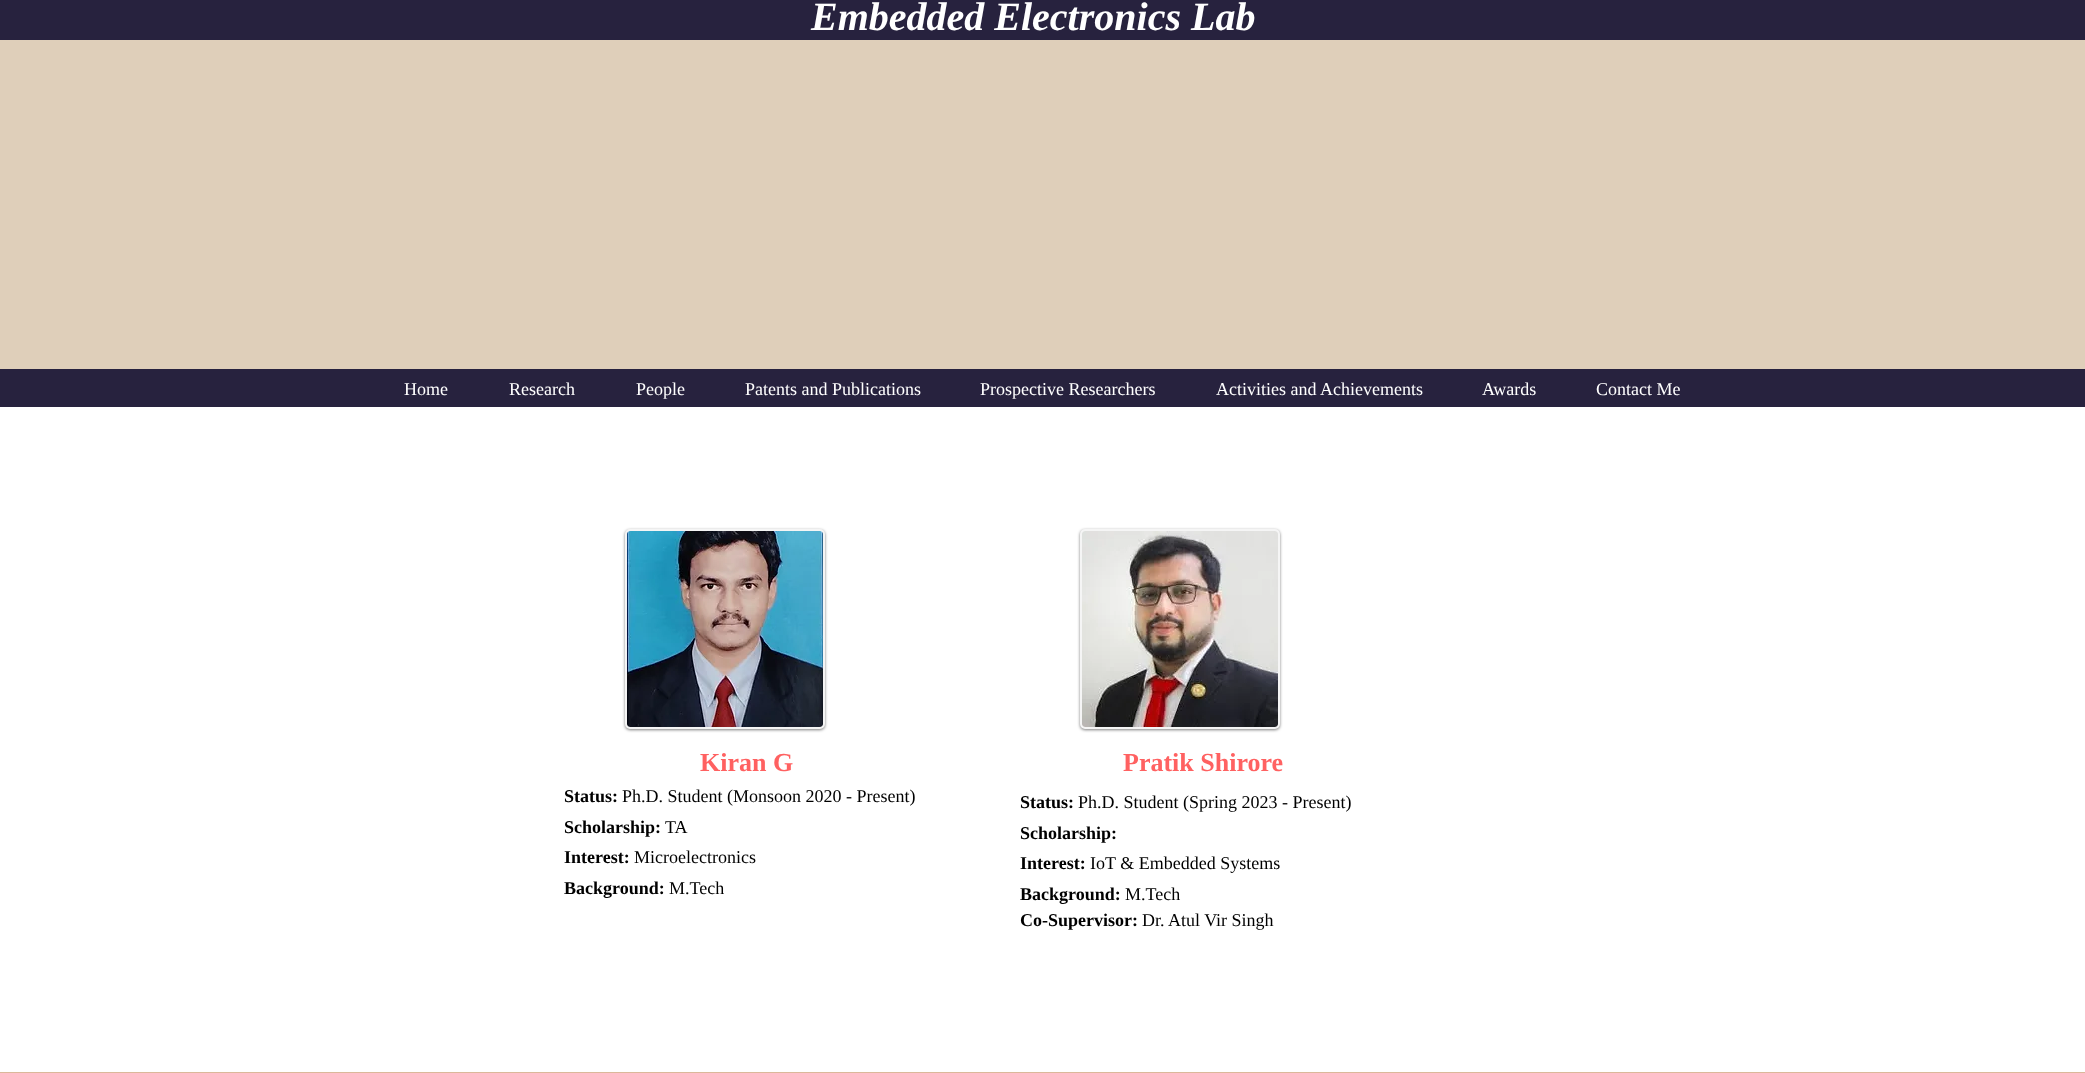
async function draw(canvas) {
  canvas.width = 2085;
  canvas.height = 1073;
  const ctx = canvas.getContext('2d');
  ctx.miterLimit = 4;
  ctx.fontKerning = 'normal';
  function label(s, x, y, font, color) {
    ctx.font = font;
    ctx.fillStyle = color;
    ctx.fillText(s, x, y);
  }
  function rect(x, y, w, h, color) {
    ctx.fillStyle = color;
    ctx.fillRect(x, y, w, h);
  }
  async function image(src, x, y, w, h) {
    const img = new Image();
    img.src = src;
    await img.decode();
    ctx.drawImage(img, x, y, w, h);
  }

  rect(0, 0, 2085, 1073, '#fff');
  rect(0, 0, 2085, 407, '#27223e');
  label('Embedded Electronics Lab', 811, 30, 'italic bold 40px Liberation Serif', '#fff');
  rect(0, 40, 2085, 329, '#dfcfba');
  label('Home', 404, 395, '18px Liberation Serif', '#fff');
  label('Research', 509, 395, '18px Liberation Serif', '#fff');
  label('People', 636, 395, '18px Liberation Serif', '#fff');
  label('Patents and Publications', 745, 395, '18px Liberation Serif', '#fff');
  label('Prospective Researchers', 980, 395, '18px Liberation Serif', '#fff');
  label('Activities and Achievements', 1216, 395, '18px Liberation Serif', '#fff');
  label('Awards', 1482, 395, '18px Liberation Serif', '#fff');
  label('Contact Me', 1596, 395, '18px Liberation Serif', '#fff');
  ctx.fillStyle = '#00000080';
  ctx.filter = 'blur(1.5px)';
  ctx.beginPath();
  ctx.roundRect(625, 530, 200, 200, 5);
  ctx.fill();
  ctx.filter = 'none';
  ctx.fillStyle = '#f5f5f5';
  ctx.beginPath();
  ctx.roundRect(626, 530, 198, 198, 4);
  ctx.fill();
  ctx.strokeStyle = '#f5f5f5';
  ctx.lineWidth = 2;
  ctx.stroke();
  await image('assets/img1.png', 627, 531, 196, 196);
  ctx.fillStyle = '#00000080';
  ctx.filter = 'blur(1.5px)';
  ctx.beginPath();
  ctx.roundRect(1080, 530, 200, 200, 5);
  ctx.fill();
  ctx.filter = 'none';
  ctx.fillStyle = '#f5f5f5';
  ctx.beginPath();
  ctx.roundRect(1081, 530, 198, 198, 4);
  ctx.fill();
  ctx.stroke();
  await image('assets/img2.png', 1082, 531, 196, 196);
  label('Kiran G', 700, 771, 'bold 26px Liberation Serif', '#ff6161');
  label('Pratik Shirore', 1123, 771, 'bold 26px Liberation Serif', '#ff6161');
  label('Status:', 564, 802, 'bold 18px Liberation Serif', '#000');
  label('Ph.D. Student (Monsoon 2020 - Present)', 622, 802, '18px Liberation Serif', '#000');
  label('Scholarship:', 564, 833, 'bold 18px Liberation Serif', '#000');
  label('TA', 665, 833, '18px Liberation Serif', '#000');
  label('Interest:', 564, 863, 'bold 18px Liberation Serif', '#000');
  label('Microelectronics', 634, 863, '18px Liberation Serif', '#000');
  label('Background:', 564, 894, 'bold 18px Liberation Serif', '#000');
  label('M.Tech', 669, 894, '18px Liberation Serif', '#000');
  label('Status:', 1020, 808, 'bold 18px Liberation Serif', '#000');
  label('Ph.D. Student (Spring 2023 - Present)', 1078, 808, '18px Liberation Serif', '#000');
  label('Scholarship:', 1020, 839, 'bold 18px Liberation Serif', '#000');
  label('Interest:', 1020, 869, 'bold 18px Liberation Serif', '#000');
  label('IoT & Embedded Systems', 1090, 869, '18px Liberation Serif', '#000');
  label('Background:', 1020, 900, 'bold 18px Liberation Serif', '#000');
  label('M.Tech', 1125, 900, '18px Liberation Serif', '#000');
  label('Co-Supervisor:', 1020, 926, 'bold 18px Liberation Serif', '#000');
  label('Dr. Atul Vir Singh', 1142, 926, '18px Liberation Serif', '#000');
  rect(0, 1072, 2085, 1, '#dbb89a');
}

draw(document.querySelector('canvas'));
